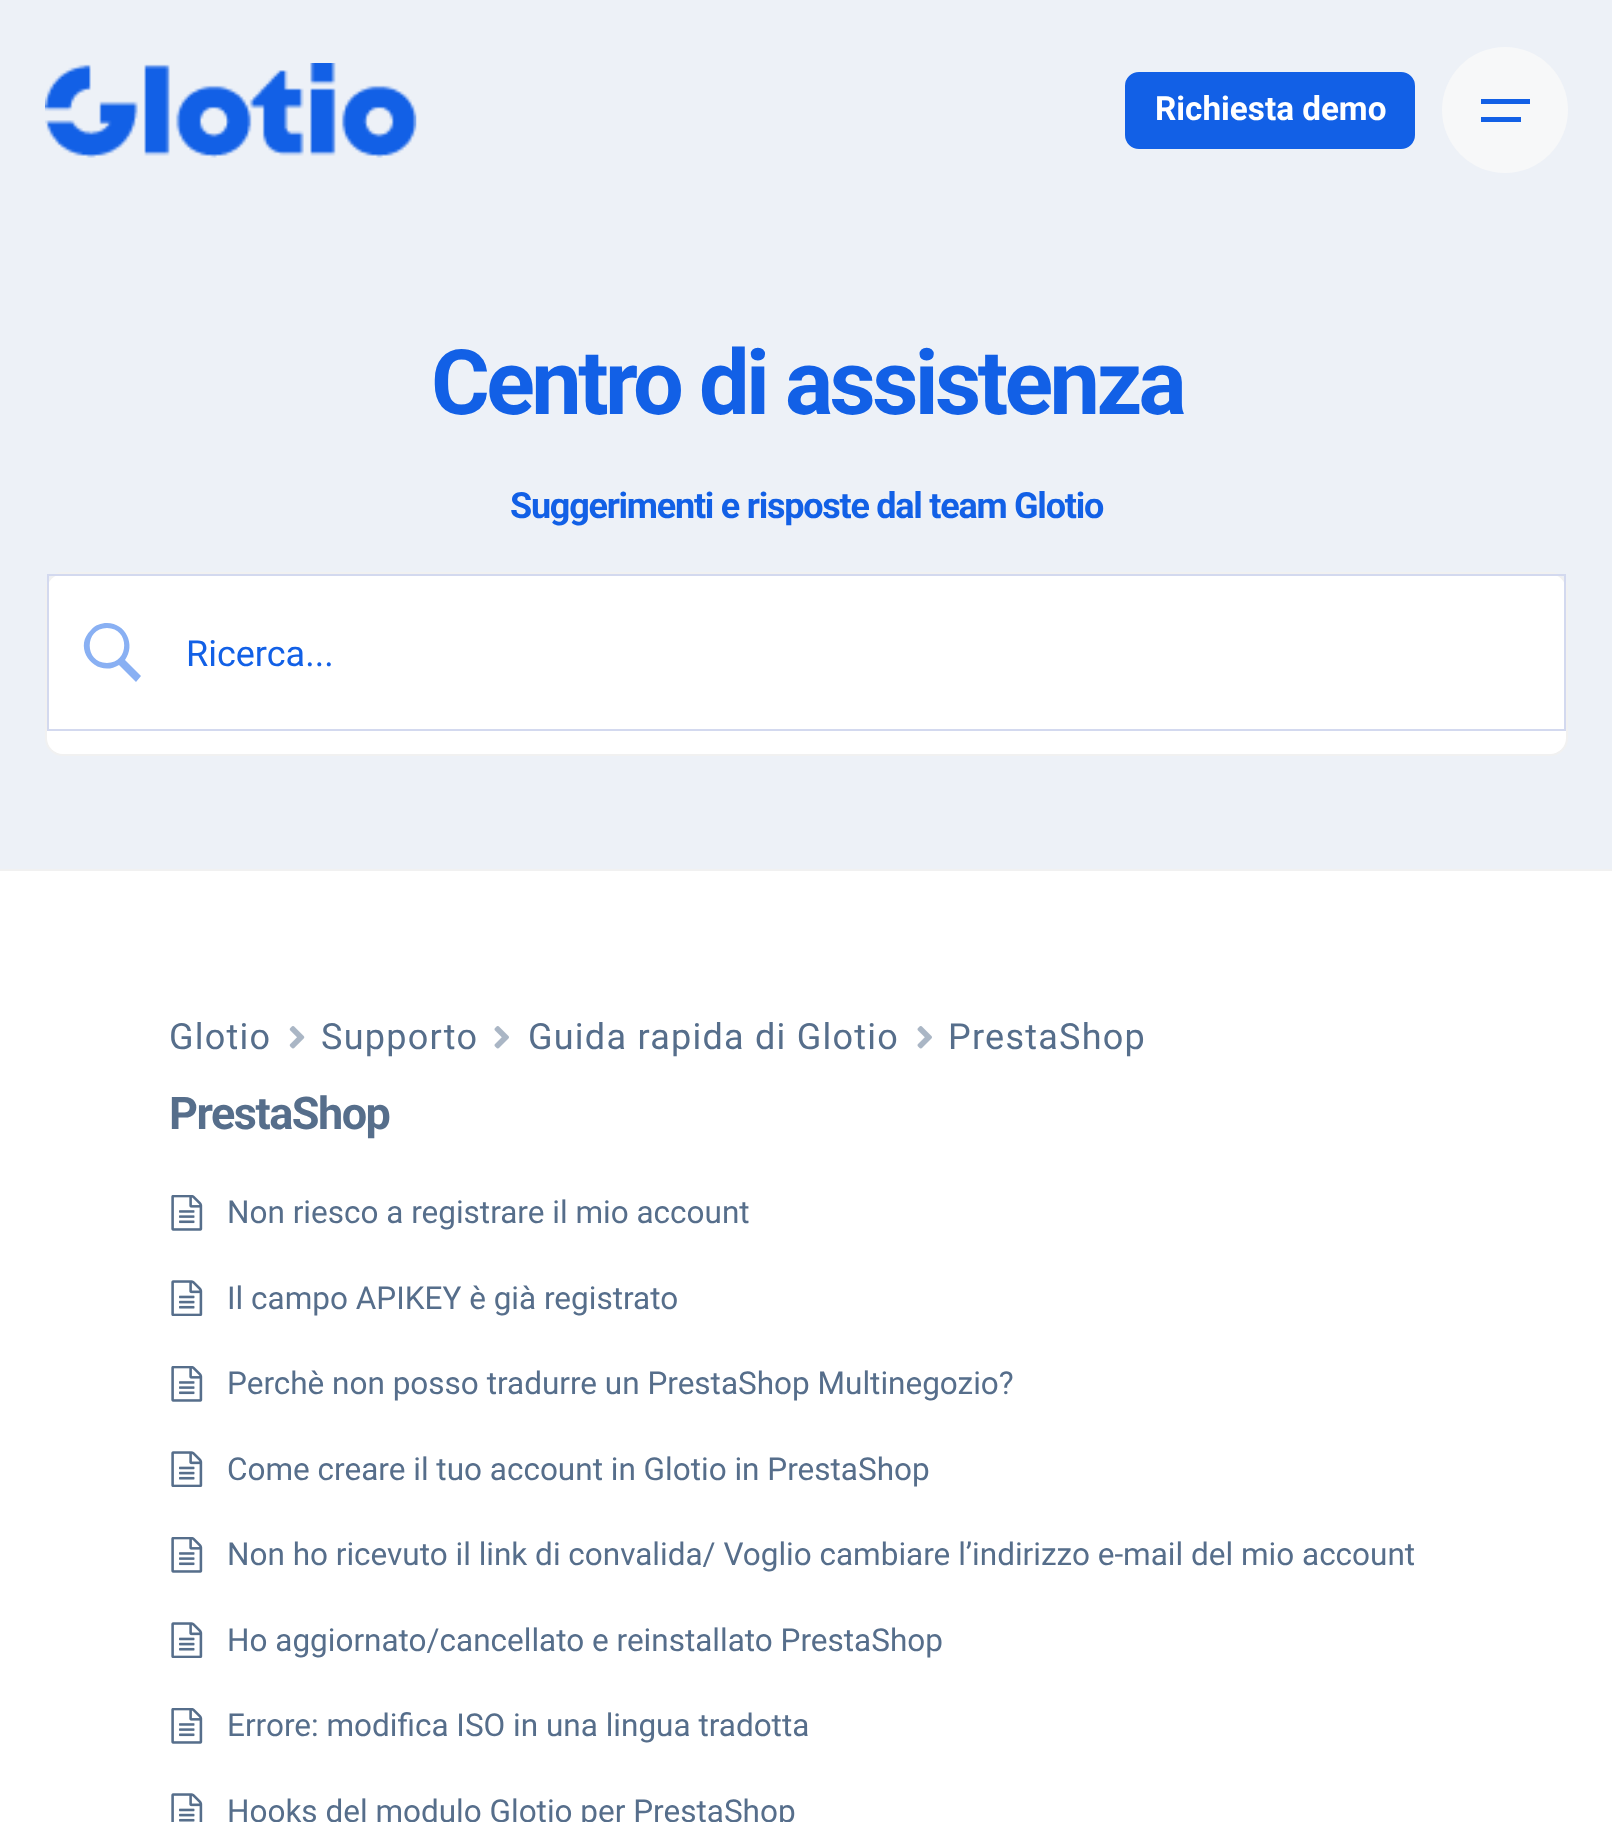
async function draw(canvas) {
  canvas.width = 1612;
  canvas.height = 1822;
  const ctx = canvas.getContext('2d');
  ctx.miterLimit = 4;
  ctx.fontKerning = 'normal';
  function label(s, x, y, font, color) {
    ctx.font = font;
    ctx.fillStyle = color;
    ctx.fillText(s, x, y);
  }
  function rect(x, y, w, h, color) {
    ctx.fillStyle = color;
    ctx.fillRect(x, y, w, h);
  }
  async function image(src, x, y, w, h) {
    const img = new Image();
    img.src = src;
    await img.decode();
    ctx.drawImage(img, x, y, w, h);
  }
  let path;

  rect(0, 0, 1612, 1822, '#fff');
  rect(0, 0, 1612, 869, '#edf1f7');
  await image('assets/img1.png', 45, 63, 372, 95);
  ctx.fillStyle = '#1260e6';
  ctx.beginPath();
  ctx.roundRect(1126, 73, 288, 75, 13);
  ctx.fill();
  ctx.strokeStyle = '#1260e6';
  ctx.lineWidth = 2;
  ctx.stroke();
  label('Richiesta demo', 1155, 120, 'bold 33.25px Roboto', '#fff');
  ctx.fillStyle = '#f7f8f9';
  ctx.beginPath();
  ctx.arc(1505, 110, 63, 0, 2 * Math.PI);
  ctx.fill();
  rect(1481, 99, 49, 5, '#1260e6');
  rect(1481, 117, 40, 5, '#1260e6');
  rect(0, 869, 1612, 2, '#f1f1f1');
  ctx.letterSpacing = '-3.6px';
  label('Centro di assistenza', 431, 414, 'bold 90px Roboto', '#1260e6');
  ctx.letterSpacing = '-1.25px';
  label('Suggerimenti e risposte dal team Glotio', 510, 518, 'bold 36px Roboto', '#1260e6');
  ctx.fillStyle = '#fff';
  ctx.beginPath();
  ctx.roundRect(46, 573, 1521, 182, 17);
  ctx.fill();
  ctx.strokeStyle = '#f1f1f1';
  ctx.stroke();
  ctx.strokeStyle = '#d3d9ef';
  ctx.strokeRect(48, 575, 1517, 155);
  ctx.fillStyle = '#89b0f3';
  path = new Path2D('M107 623C101 623 95 625 91 630C71 649 97 679 119 665L136 682L141 676L125 660C136 645 126 623 107 623ZM107 628C130 628 130 663 107 663C84 663 84 628 107 628Z');
  ctx.fill(path);
  ctx.letterSpacing = '0px';
  label('Ricerca...', 186, 666, '36px Roboto', '#1260e6');
  ctx.letterSpacing = '1.25px';
  label('Glotio', 169, 1049, '36px Roboto', '#566e8b');
  await image('assets/img2.png', 289, 1026, 16, 23);
  label('Supporto', 321, 1049, '36px Roboto', '#566e8b');
  await image('assets/img3.png', 494, 1026, 15, 23);
  label('Guida rapida di Glotio', 528, 1049, '36px Roboto', '#566e8b');
  await image('assets/img3.png', 917, 1026, 15, 23);
  label('PrestaShop', 948, 1049, '36px Roboto', '#566e8b');
  ctx.letterSpacing = '-1.5px';
  label('PrestaShop', 169, 1129, 'bold 45px Roboto', '#566e8b');
  await image('assets/img4.png', 171, 1195, 32, 36);
  ctx.letterSpacing = '0px';
  label('Non riesco a registrare il mio account', 227, 1223, '31.5px Roboto', '#566e8b');
  await image('assets/img5.png', 171, 1280, 32, 36);
  label('Il campo APIKEY è già registrato', 227, 1309, '31.5px Roboto', '#566e8b');
  await image('assets/img4.png', 171, 1366, 32, 36);
  label('Perchè non posso tradurre un PrestaShop Multinegozio?', 227, 1394, '31.5px Roboto', '#566e8b');
  await image('assets/img5.png', 171, 1451, 32, 36);
  label('Come creare il tuo account in Glotio in PrestaShop', 227, 1480, '31.5px Roboto', '#566e8b');
  await image('assets/img4.png', 171, 1537, 32, 36);
  label('Non ho ricevuto il link di convalida/ Voglio cambiare l’indirizzo e-mail del mio account', 227, 1565, '31.5px Roboto', '#566e8b');
  await image('assets/img5.png', 171, 1622, 32, 36);
  label('Ho aggiornato/cancellato e reinstallato PrestaShop', 227, 1651, '31.5px Roboto', '#566e8b');
  await image('assets/img4.png', 171, 1708, 32, 36);
  label('Errore: modifica ISO in una lingua tradotta', 227, 1736, '31.5px Roboto', '#566e8b');
  await image('assets/img6.png', 171, 1793, 32, 29);
  label('Hooks del modulo Glotio per PrestaShop', 227, 1822, '31.5px Roboto', '#566e8b');
}

draw(document.querySelector('canvas'));
